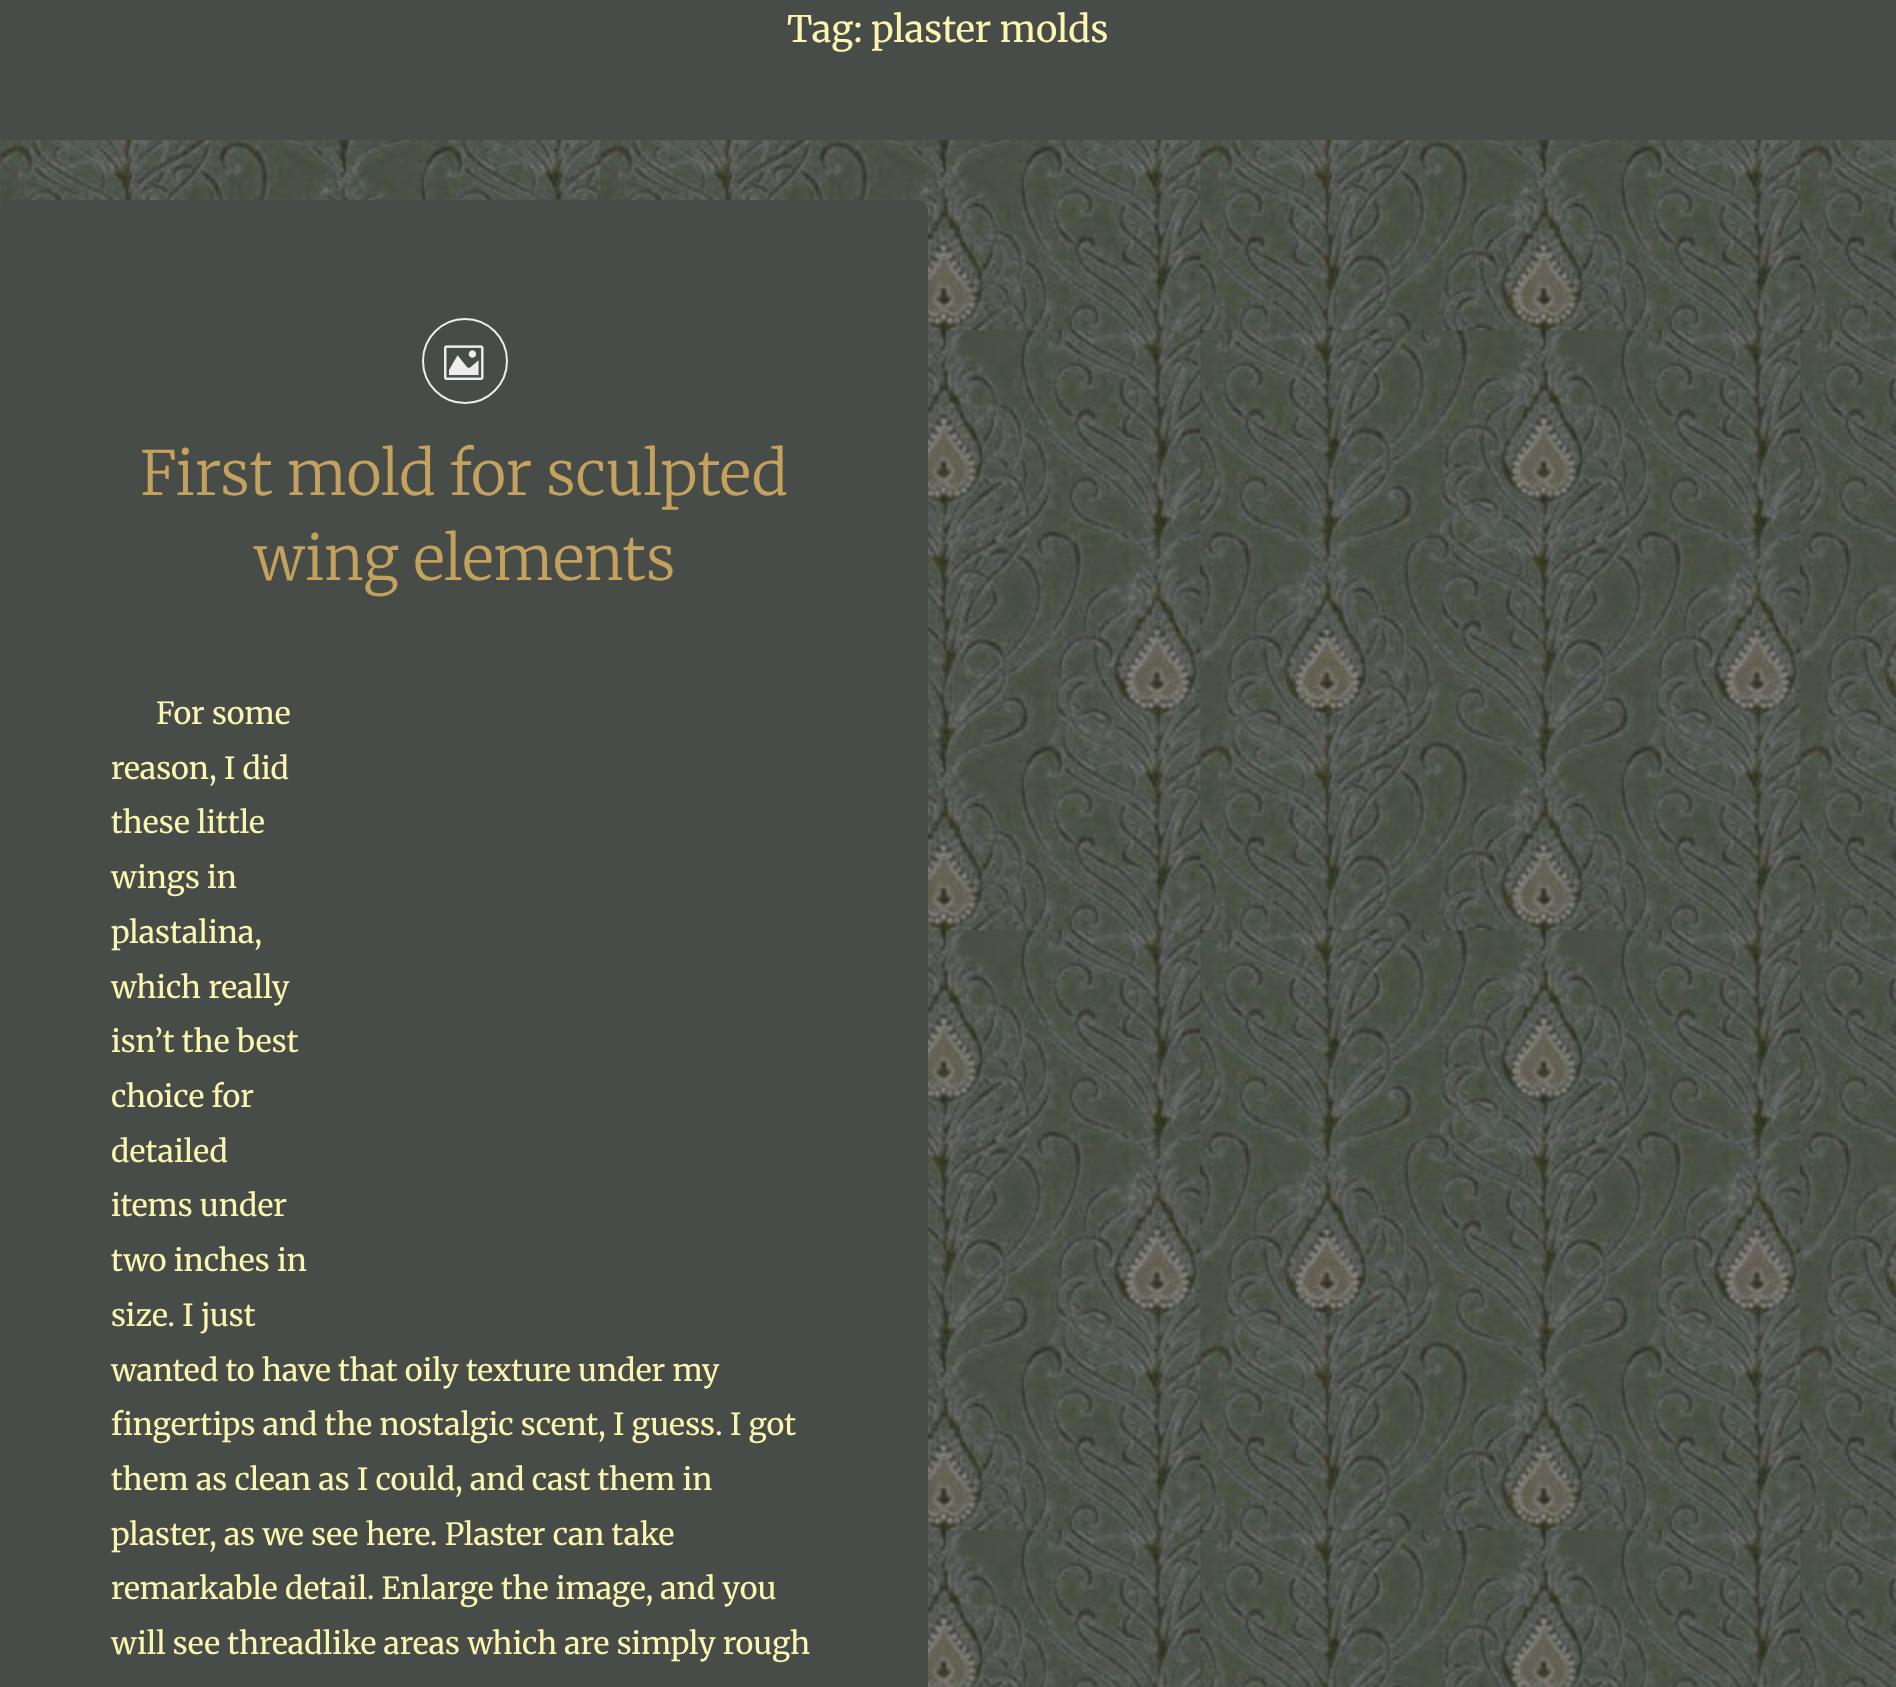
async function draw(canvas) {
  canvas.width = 1896;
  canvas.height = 1687;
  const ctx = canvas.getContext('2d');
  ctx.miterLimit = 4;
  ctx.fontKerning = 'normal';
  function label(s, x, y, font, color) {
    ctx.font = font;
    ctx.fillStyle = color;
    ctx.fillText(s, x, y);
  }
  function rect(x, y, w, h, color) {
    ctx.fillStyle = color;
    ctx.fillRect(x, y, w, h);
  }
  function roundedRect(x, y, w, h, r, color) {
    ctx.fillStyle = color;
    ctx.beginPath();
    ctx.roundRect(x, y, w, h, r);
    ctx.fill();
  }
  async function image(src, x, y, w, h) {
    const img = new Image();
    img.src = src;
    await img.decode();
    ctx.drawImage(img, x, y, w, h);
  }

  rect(0, 0, 1896, 1687, '#fff');
  await image('assets/img1.png', 0, 140, 1896, 1547);
  rect(0, 0, 1896, 140, '#474c48');
  label('Tag: plaster molds', 787, 42, '36.5px Merriweather', '#fbf6b0');
  roundedRect(0, 200, 928, 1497, 10, '#474c48');
  ctx.beginPath();
  ctx.arc(465, 361, 42, 0, 2 * Math.PI);
  ctx.strokeStyle = '#ededed';
  ctx.lineWidth = 2;
  ctx.stroke();
  await image('assets/img2.png', 444, 345, 40, 35);
  label('First mold for sculpted', 140, 495, '300 60.75px Merriweather', '#c4a25e');
  label('wing elements', 254, 580, '300 60.75px Merriweather', '#c4a25e');
  label('For some', 156, 724, '30.4px Merriweather', '#fbf6b0');
  label('reason, I did', 111, 779, '30.4px Merriweather', '#fbf6b0');
  label('these little', 111, 833, '30.4px Merriweather', '#fbf6b0');
  label('wings in', 111, 888, '30.4px Merriweather', '#fbf6b0');
  label('plastalina,', 111, 943, '30.4px Merriweather', '#fbf6b0');
  label('which really', 111, 998, '30.4px Merriweather', '#fbf6b0');
  label('isn’t the best', 111, 1052, '30.4px Merriweather', '#fbf6b0');
  label('choice for', 111, 1107, '30.4px Merriweather', '#fbf6b0');
  label('detailed', 111, 1162, '30.4px Merriweather', '#fbf6b0');
  label('items under', 111, 1216, '30.4px Merriweather', '#fbf6b0');
  label('two inches in', 111, 1271, '30.4px Merriweather', '#fbf6b0');
  label('size. I just', 111, 1326, '30.4px Merriweather', '#fbf6b0');
  label('wanted to have that oily texture under my', 111, 1381, '30.4px Merriweather', '#fbf6b0');
  label('fingertips and the nostalgic scent, I guess. I got', 111, 1435, '30.4px Merriweather', '#fbf6b0');
  label('them as clean as I could, and cast them in', 111, 1490, '30.4px Merriweather', '#fbf6b0');
  label('plaster, as we see here. Plaster can take', 111, 1545, '30.4px Merriweather', '#fbf6b0');
  label('remarkable detail. Enlarge the image, and you', 111, 1599, '30.4px Merriweather', '#fbf6b0');
  label('will see threadlike areas which are simply rough', 111, 1654, '30.4px Merriweather', '#fbf6b0');
}

draw(document.querySelector('canvas'));
